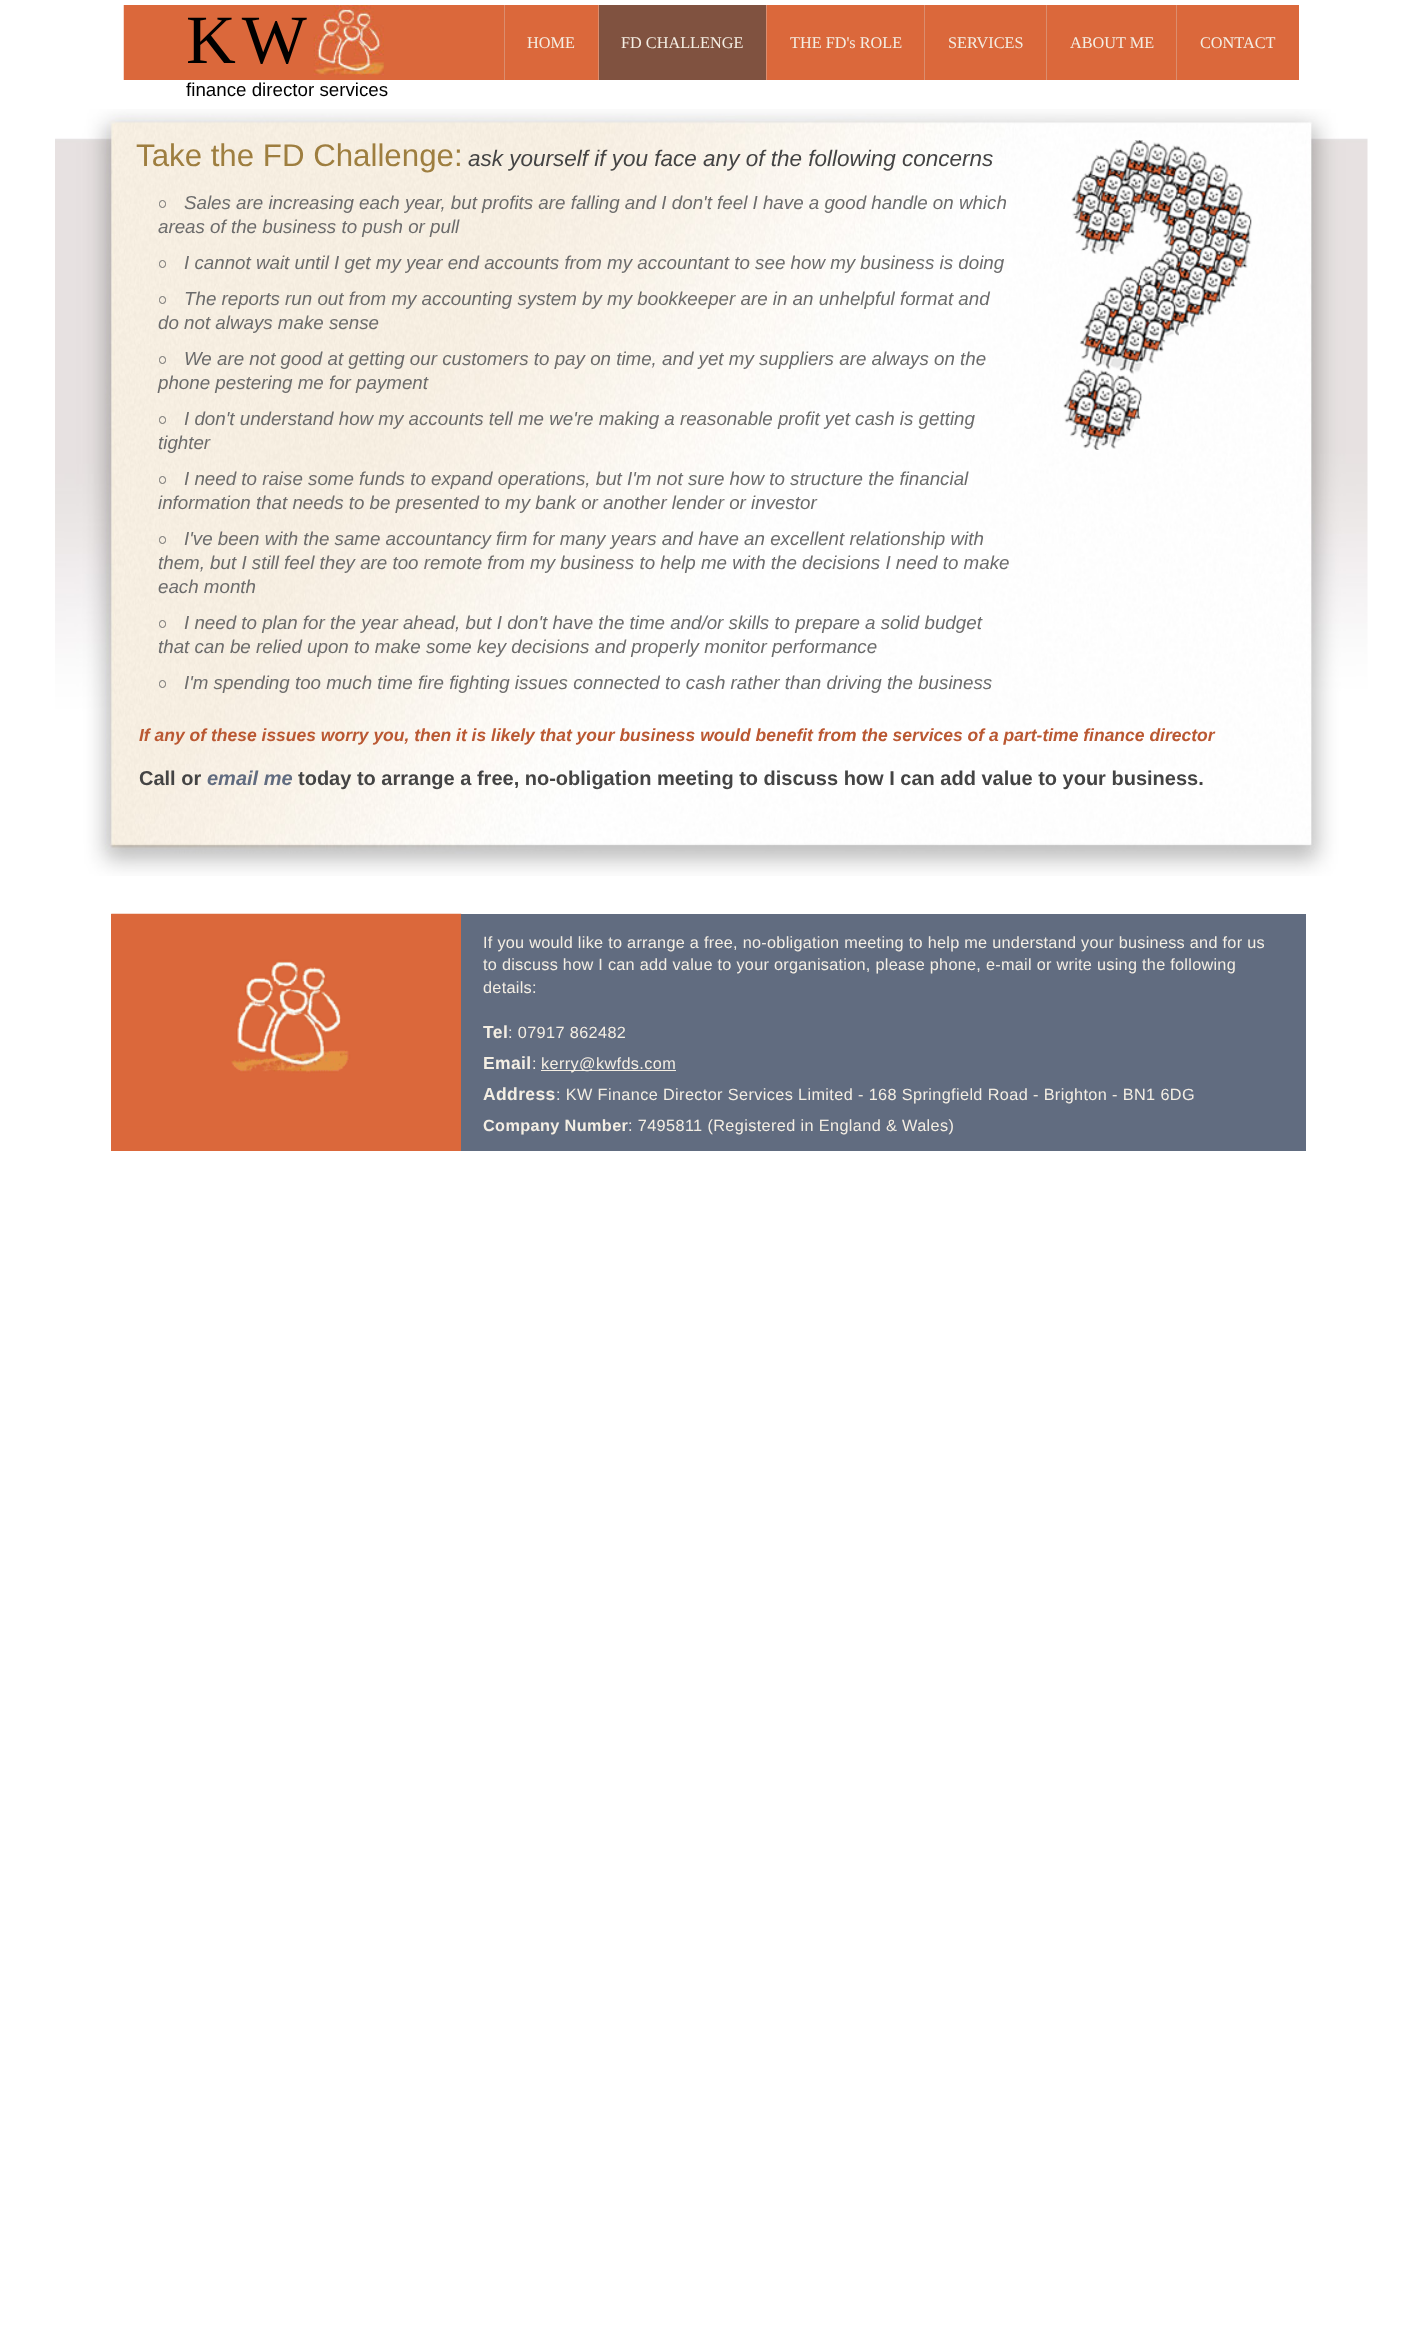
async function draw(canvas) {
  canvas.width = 1421;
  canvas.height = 2346;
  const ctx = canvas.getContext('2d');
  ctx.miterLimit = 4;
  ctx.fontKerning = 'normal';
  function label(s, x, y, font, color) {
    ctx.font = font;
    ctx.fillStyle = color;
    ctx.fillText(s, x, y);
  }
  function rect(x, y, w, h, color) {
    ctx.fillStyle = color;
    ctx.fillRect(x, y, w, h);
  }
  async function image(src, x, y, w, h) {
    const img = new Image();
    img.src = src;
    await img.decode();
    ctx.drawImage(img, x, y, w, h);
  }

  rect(0, 0, 1421, 2346, '#fff');
  await image('assets/img1.png', 55, 109, 1313, 767);
  rect(384, 5, 915, 75, '#db683b');
  await image('assets/img2.png', 123, 5, 261, 75);
  ctx.letterSpacing = '6px';
  label('KW', 186, 63, '69px Liberation Serif', '#000');
  rect(504, 5, 1, 75, '#db8d6e');
  ctx.letterSpacing = '0px';
  label('HOME', 527, 48, '16.25px Liberation Serif', '#f4eee3');
  rect(598, 5, 1, 75, '#db8d6e');
  rect(599, 5, 167, 75, '#805240');
  label('FD CHALLENGE', 621, 48, '16.25px Liberation Serif', '#f4eee3');
  rect(766, 5, 1, 75, '#db8d6e');
  label('THE FD\'s ROLE', 790, 48, '16.25px Liberation Serif', '#f4eee3');
  rect(924, 5, 1, 75, '#db8d6e');
  label('SERVICES', 948, 48, '16.25px Liberation Serif', '#f4eee3');
  rect(1046, 5, 1, 75, '#db8d6e');
  label('ABOUT ME', 1070, 48, '16.25px Liberation Serif', '#f4eee3');
  rect(1176, 5, 1, 75, '#db8d6e');
  label('CONTACT', 1200, 48, '16.25px Liberation Serif', '#f4eee3');
  label('finance director services', 186, 96, '18.75px Liberation Sans', '#000');
  label('Take the FD Challenge:', 136, 166, '31.25px Liberation Sans', '#9e7e3f');
  label('ask yourself if you face any of the following concerns', 468, 166, 'italic 22.5px Liberation Sans', '#444');
  ctx.beginPath();
  ctx.roundRect(159.5, 200.5, 6, 7, 3);
  ctx.strokeStyle = '#6c6c6c';
  ctx.stroke();
  label('Sales are increasing each year, but profits are falling and I don\'t feel I have a good handle on which', 184, 209, 'italic 18.75px Liberation Sans', '#6c6c6c');
  label('areas of the business to push or pull', 158, 233, 'italic 18.75px Liberation Sans', '#6c6c6c');
  ctx.beginPath();
  ctx.roundRect(159.5, 260.5, 6, 7, 3);
  ctx.stroke();
  label('I cannot wait until I get my year end accounts from my accountant to see how my business is doing', 184, 269, 'italic 18.75px Liberation Sans', '#6c6c6c');
  ctx.beginPath();
  ctx.roundRect(159.5, 296.5, 6, 7, 3);
  ctx.stroke();
  label('The reports run out from my accounting system by my bookkeeper are in an unhelpful format and', 184, 305, 'italic 18.75px Liberation Sans', '#6c6c6c');
  label('do not always make sense', 158, 329, 'italic 18.75px Liberation Sans', '#6c6c6c');
  ctx.beginPath();
  ctx.roundRect(159.5, 356.5, 6, 7, 3);
  ctx.stroke();
  label('We are not good at getting our customers to pay on time, and yet my suppliers are always on the', 184, 365, 'italic 18.75px Liberation Sans', '#6c6c6c');
  label('phone pestering me for payment', 158, 389, 'italic 18.75px Liberation Sans', '#6c6c6c');
  ctx.beginPath();
  ctx.roundRect(159.5, 416.5, 6, 7, 3);
  ctx.stroke();
  label('I don\'t understand how my accounts tell me we\'re making a reasonable profit yet cash is getting', 184, 425, 'italic 18.75px Liberation Sans', '#6c6c6c');
  label('tighter', 158, 449, 'italic 18.75px Liberation Sans', '#6c6c6c');
  ctx.beginPath();
  ctx.roundRect(159.5, 476.5, 6, 7, 3);
  ctx.stroke();
  label('I need to raise some funds to expand operations, but I\'m not sure how to structure the financial', 184, 485, 'italic 18.75px Liberation Sans', '#6c6c6c');
  label('information that needs to be presented to my bank or another lender or investor', 158, 509, 'italic 18.75px Liberation Sans', '#6c6c6c');
  ctx.beginPath();
  ctx.roundRect(159.5, 536.5, 6, 7, 3);
  ctx.stroke();
  label('I\'ve been with the same accountancy firm for many years and have an excellent relationship with', 184, 545, 'italic 18.75px Liberation Sans', '#6c6c6c');
  label('them, but I still feel they are too remote from my business to help me with the decisions I need to make', 158, 569, 'italic 18.75px Liberation Sans', '#6c6c6c');
  label('each month', 158, 593, 'italic 18.75px Liberation Sans', '#6c6c6c');
  ctx.beginPath();
  ctx.roundRect(159.5, 620.5, 6, 7, 3);
  ctx.stroke();
  label('I need to plan for the year ahead, but I don\'t have the time and/or skills to prepare a solid budget', 184, 629, 'italic 18.75px Liberation Sans', '#6c6c6c');
  label('that can be relied upon to make some key decisions and properly monitor performance', 158, 653, 'italic 18.75px Liberation Sans', '#6c6c6c');
  ctx.beginPath();
  ctx.roundRect(159.5, 680.5, 6, 7, 3);
  ctx.stroke();
  label('I\'m spending too much time fire fighting issues connected to cash rather than driving the business', 184, 689, 'italic 18.75px Liberation Sans', '#6c6c6c');
  await image('assets/img3.png', 1063, 140, 189, 310);
  label('If any of these issues worry you, then it is likely that your business would benefit from the services of a part-time finance director', 139, 741, 'italic bold 17.5px Liberation Sans', '#ba5832');
  label('Call or', 139, 785, 'bold 20px Liberation Sans', '#444');
  label('email me', 207, 785, 'italic bold 20px Liberation Sans', '#616c80');
  label('today to arrange a free, no-obligation meeting to discuss how I can add value to your business.', 298, 785, 'bold 20px Liberation Sans', '#444');
  rect(111, 914, 350, 237, '#db683b');
  await image('assets/img4.png', 111, 913, 351, 214);
  rect(461, 914, 845, 237, '#616c80');
  ctx.letterSpacing = '0.28px';
  label('If you would like to arrange a free, no-obligation meeting to help me understand your business and for us', 483, 948, '16.25px Liberation Sans', '#f4eee3');
  label('to discuss how I can add value to your organisation, please phone, e-mail or write using the following', 483, 970, '16.25px Liberation Sans', '#f4eee3');
  label('details:', 483, 993, '16.25px Liberation Sans', '#f4eee3');
  ctx.letterSpacing = '0.38px';
  label('Tel', 483, 1038, 'bold 17.5px Liberation Sans', '#f4eee3');
  label(': 07917 862482', 508, 1038, '16.25px Liberation Sans', '#f4eee3');
  label('Email', 483, 1069, 'bold 17.5px Liberation Sans', '#f4eee3');
  label(':', 532, 1069, '16.25px Liberation Sans', '#f4eee3');
  rect(541, 1070, 135, 1, '#f4eee3');
  label('kerry@kwfds.com', 541, 1069, '16.25px Liberation Sans', '#f4eee3');
  label('Address', 483, 1100, 'bold 17.5px Liberation Sans', '#f4eee3');
  label(': KW Finance Director Services Limited - 168 Springfield Road - Brighton - BN1 6DG', 556, 1100, '16.25px Liberation Sans', '#f4eee3');
  label('Company Number', 483, 1131, 'bold 16.25px Liberation Sans', '#f4eee3');
  label(': 7495811 (Registered in England & Wales)', 628, 1131, '16.25px Liberation Sans', '#f4eee3');
}

draw(document.querySelector('canvas'));
